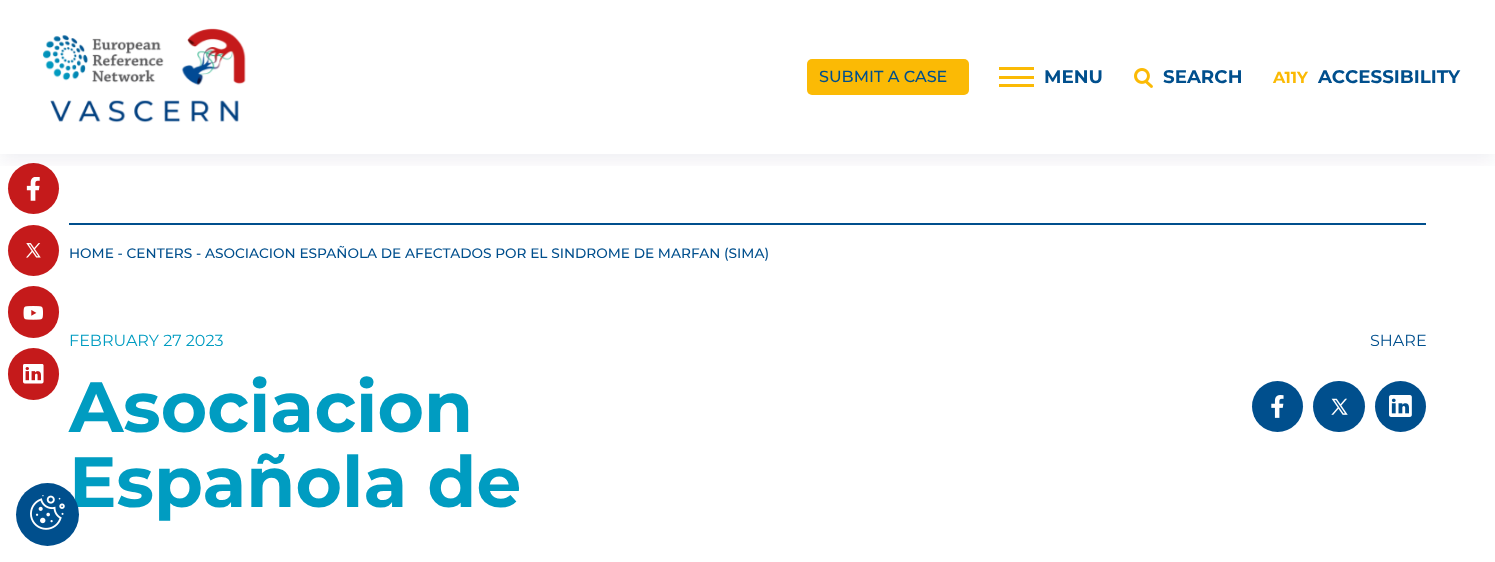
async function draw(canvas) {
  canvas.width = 1495;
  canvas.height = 562;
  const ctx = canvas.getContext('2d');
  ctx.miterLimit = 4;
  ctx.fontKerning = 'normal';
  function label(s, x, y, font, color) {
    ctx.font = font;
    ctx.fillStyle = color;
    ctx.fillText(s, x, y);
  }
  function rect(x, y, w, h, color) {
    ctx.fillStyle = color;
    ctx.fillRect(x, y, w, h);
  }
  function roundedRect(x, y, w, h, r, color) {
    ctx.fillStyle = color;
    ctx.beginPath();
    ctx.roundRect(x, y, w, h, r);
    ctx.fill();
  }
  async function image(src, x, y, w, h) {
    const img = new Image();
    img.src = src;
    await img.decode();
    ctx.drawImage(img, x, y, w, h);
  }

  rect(0, 0, 1495, 562, '#fff');
  label('Española de', 69, 507, 'bold 71px Montserrat', '#009cc1');
  ctx.fillStyle = '#004f8d';
  ctx.beginPath();
  ctx.arc(47.5, 514.5, 31.5, 0, 2 * Math.PI);
  ctx.fill();
  await image('assets/img1.png', 30, 495, 35, 35);
  ctx.fillStyle = '#c51a1b';
  ctx.beginPath();
  ctx.arc(33.5, 188.5, 25.5, 0, 2 * Math.PI);
  ctx.fill();
  await image('assets/img4.png', 26, 177, 14, 24);
  ctx.save();
  ctx.beginPath();
  ctx.rect(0, 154, 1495, 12);
  ctx.clip();
  ctx.fillStyle = '#1c0e4a14';
  ctx.filter = 'blur(10px)';
  ctx.beginPath();
  ctx.rect(0, 5, 1495, 154);
  ctx.fill();
  ctx.filter = 'none';
  ctx.restore();
  await image('assets/img2.png', 42, 28, 204, 95);
  roundedRect(807, 59, 162, 36, 5, '#fbba05');
  label('SUBMIT A CASE', 819, 82, '500 16px Montserrat', '#004f8d');
  rect(999, 67, 35, 3, '#fbba05');
  rect(999, 76, 35, 3, '#fbba05');
  rect(999, 84, 35, 3, '#fbba05');
  label('MENU', 1044, 83, 'bold 18.25px Montserrat', '#004f8d');
  await image('assets/img3.png', 1134, 68, 19, 20);
  label('SEARCH', 1163, 83, 'bold 18.25px Montserrat', '#004f8d');
  label('A11Y', 1273, 83, 'bold 16px Montserrat', '#fbba05');
  label('ACCESSIBILITY', 1318, 83, 'bold 18.25px Montserrat', '#004f8d');
  ctx.fillStyle = '#c51a1b';
  ctx.beginPath();
  ctx.arc(33.5, 250.5, 25.5, 0, 2 * Math.PI);
  ctx.fill();
  await image('assets/img5.png', 26, 243, 15, 15);
  roundedRect(8, 286, 51, 52, 25.5, '#c51a1b');
  await image('assets/img6.png', 23, 306, 20, 14);
  roundedRect(8, 348, 51, 52, 25.5, '#c51a1b');
  await image('assets/img7.png', 23, 364, 21, 20);
  rect(69, 223, 1357, 2, '#004f8d');
  label('HOME - CENTERS - ASOCIACION ESPAÑOLA DE AFECTADOS POR EL SINDROME DE MARFAN (SIMA)', 69, 258, '500 13.7px Montserrat', '#004f8d');
  label('FEBRUARY 27 2023', 69, 346, '16px Montserrat', '#009cc1');
  label('Asociacion', 69, 432, 'bold 71px Montserrat', '#009cc1');
  label('SHARE', 1370, 346, '16px Montserrat', '#004f8d');
  ctx.beginPath();
  ctx.arc(1277.5, 406.5, 25.5, 0, 2 * Math.PI);
  ctx.fill();
  await image('assets/img8.png', 1271, 395, 13, 23);
  roundedRect(1313, 381, 52, 51, 25.5, '#004f8d');
  await image('assets/img9.png', 1331, 398, 17, 17);
  ctx.beginPath();
  ctx.arc(1400.5, 406.5, 25.5, 0, 2 * Math.PI);
  ctx.fill();
  await image('assets/img10.png', 1389, 395, 23, 22);
}

draw(document.querySelector('canvas'));
